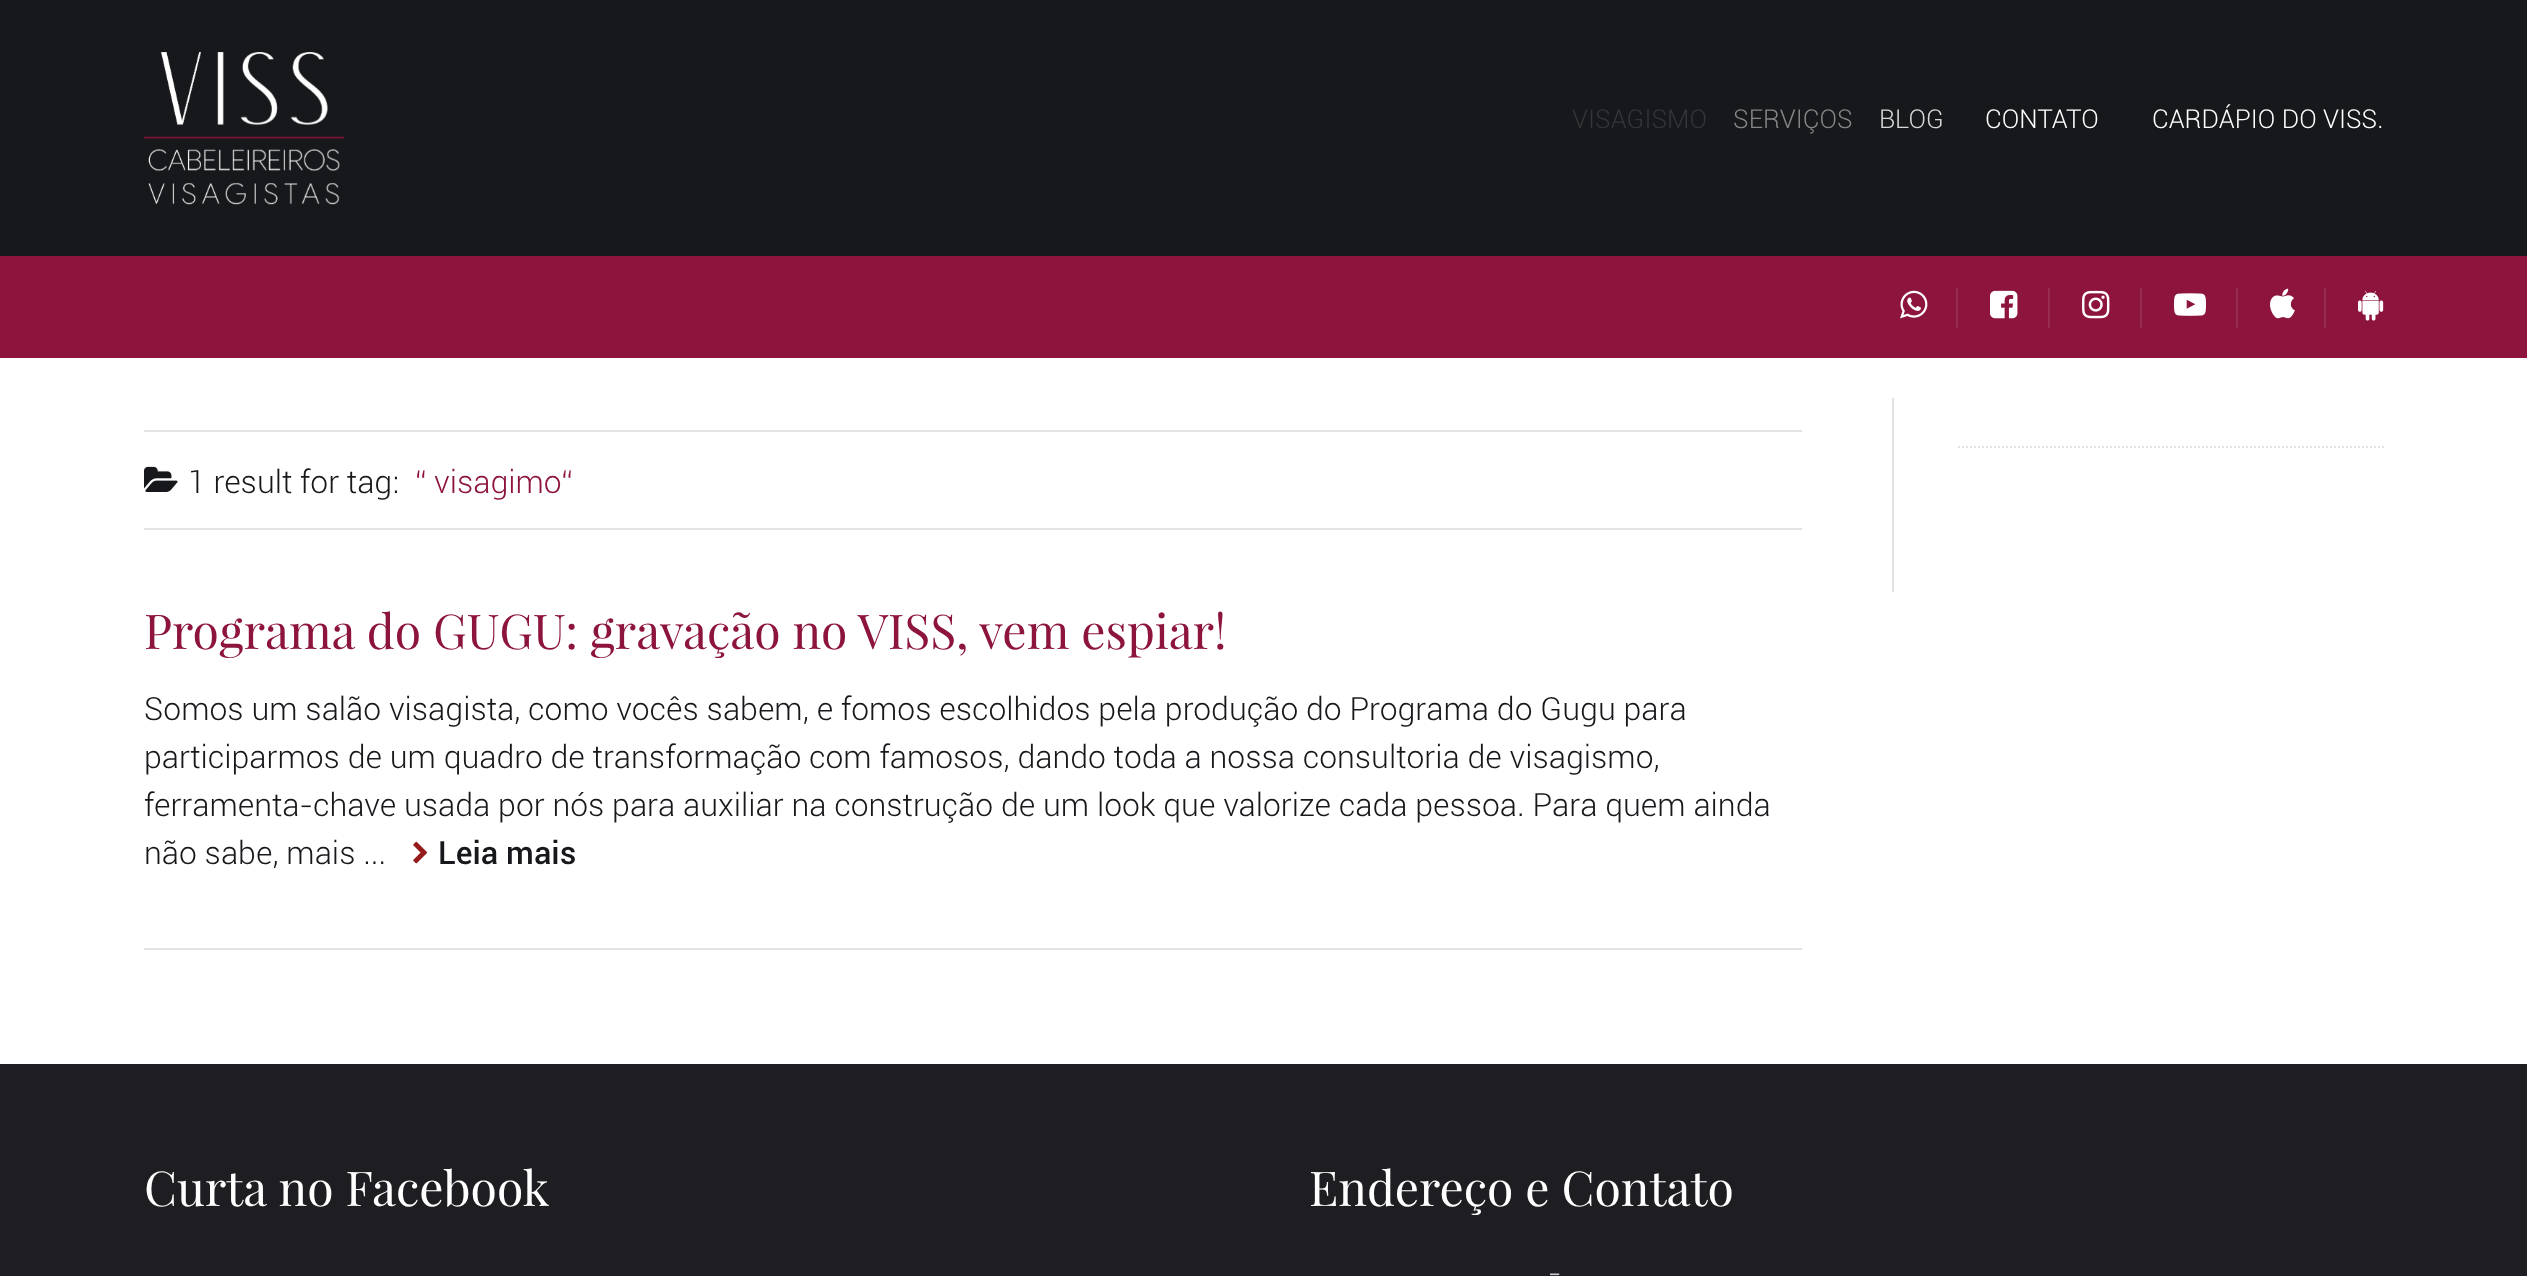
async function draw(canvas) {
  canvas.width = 2527;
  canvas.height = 1276;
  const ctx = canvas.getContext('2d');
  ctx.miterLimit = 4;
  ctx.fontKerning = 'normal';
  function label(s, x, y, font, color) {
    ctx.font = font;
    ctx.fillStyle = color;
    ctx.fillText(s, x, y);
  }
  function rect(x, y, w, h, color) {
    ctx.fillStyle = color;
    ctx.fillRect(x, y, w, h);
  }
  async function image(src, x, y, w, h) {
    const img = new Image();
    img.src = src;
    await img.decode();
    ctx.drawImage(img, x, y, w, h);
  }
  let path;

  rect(0, 0, 2527, 1276, '#fff');
  rect(0, 0, 2527, 256, '#17181b');
  await image('assets/img1.png', 144, 52, 200, 153);
  label('VISAGISMO', 1572, 128, '300 26px Roboto', '#343538');
  label('SERVIÇOS', 1733, 128, '300 26px Roboto', '#848586');
  label('BLOG', 1879, 128, '300 26px Roboto', '#d7d7d8');
  label('CONTATO', 1985, 128, '300 26px Roboto', '#fff');
  label('CARDÁPIO DO VISS.', 2152, 128, '300 26px Roboto', '#fff');
  rect(0, 256, 2527, 102, '#8d143c');
  await image('assets/img2.png', 1900, 290, 28, 29);
  rect(1956, 288, 2, 40, '#982c50');
  await image('assets/img3.png', 1990, 290, 28, 29);
  rect(2048, 288, 2, 40, '#982c50');
  await image('assets/img4.png', 2082, 290, 28, 29);
  rect(2140, 288, 2, 40, '#982c50');
  await image('assets/img5.png', 2174, 293, 32, 23);
  rect(2236, 288, 2, 40, '#982c50');
  await image('assets/img6.png', 2270, 288, 25, 31);
  rect(2324, 288, 2, 40, '#982c50');
  await image('assets/img7.png', 2358, 290, 26, 31);
  rect(144, 430, 1658, 2, '#e3e3e3');
  rect(144, 528, 1658, 2, '#e3e3e3');
  await image('assets/img8.png', 144, 466, 34, 26);
  label('1 result for tag:', 188, 493, '300 32px Roboto', '#17181b');
  label('“', 415, 493, '300 32px Roboto', '#8d143c');
  label('visagimo“', 434, 493, '300 32px Roboto', '#8d143c');
  label('Programa do GUGU: gravação no VISS, vem espiar!', 144, 649, '48px Playfair Display', '#8d143c');
  label('Somos um salão visagista, como vocês sabem, e fomos escolhidos pela produção do Programa do Gugu para', 144, 720, '300 32px Roboto', '#17181b');
  label('participarmos de um quadro de transformação com famosos, dando toda a nossa consultoria de visagismo,', 144, 768, '300 32px Roboto', '#17181b');
  label('ferramenta-chave usada por nós para auxiliar na construção de um look que valorize cada pessoa. Para quem ainda', 144, 816, '300 32px Roboto', '#17181b');
  label('não sabe, mais ...', 144, 864, '300 32px Roboto', '#17181b');
  await image('assets/img9.png', 413, 841, 14, 23);
  label('Leia mais', 438, 864, '500 32px Roboto', '#17181b');
  rect(144, 948, 1658, 2, '#e3e3e3');
  rect(1892, 398, 2, 194, '#e3e3e3');
  path = new Path2D('M1958 447H2384');
  ctx.strokeStyle = '#e3e3e3';
  ctx.lineWidth = 2;
  ctx.setLineDash([2, 2]);
  ctx.stroke(path);
  rect(0, 1064, 2527, 212, '#1e1e22');
  label('Curta no Facebook', 144, 1206, '48px Playfair Display', '#fff');
  label('Endereço e Contato', 1309, 1206, '48px Playfair Display', '#fff');
  label('-', 1548, 1284, '300 32px Roboto', '#cacdcf');
}

draw(document.querySelector('canvas'));
